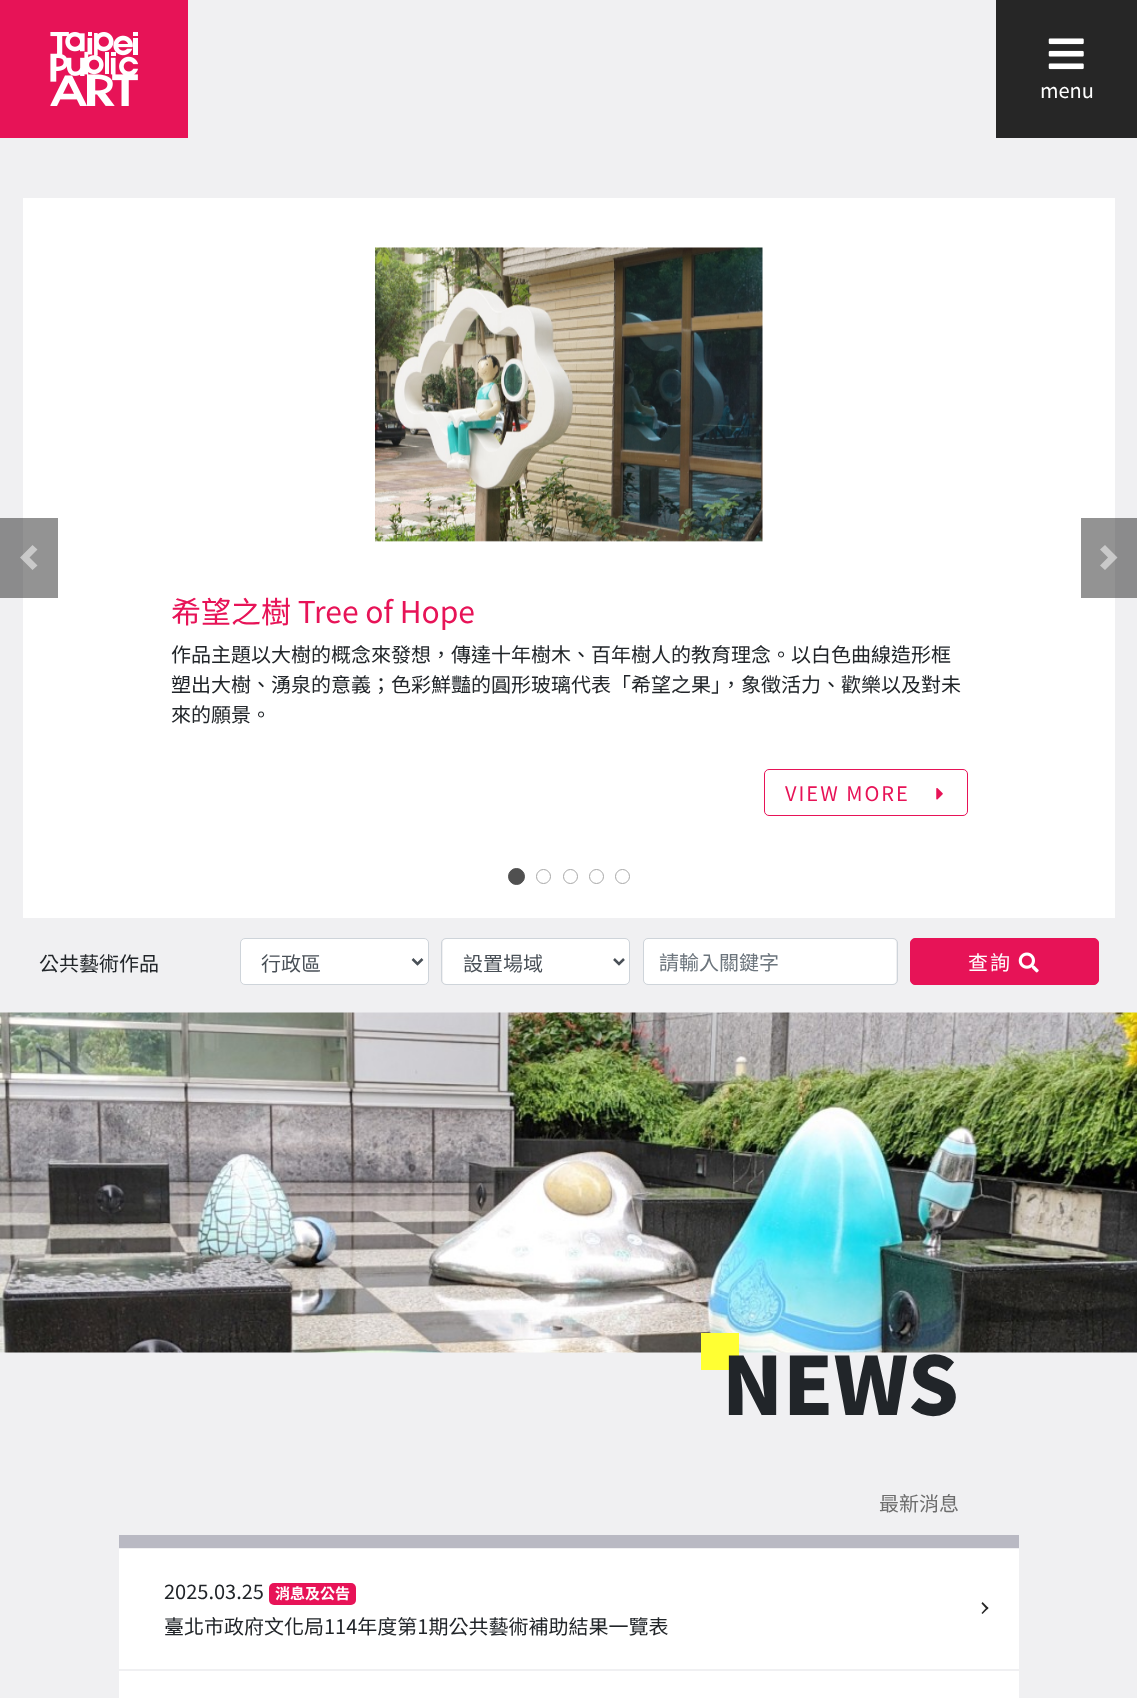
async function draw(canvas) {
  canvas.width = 1137;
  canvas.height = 1698;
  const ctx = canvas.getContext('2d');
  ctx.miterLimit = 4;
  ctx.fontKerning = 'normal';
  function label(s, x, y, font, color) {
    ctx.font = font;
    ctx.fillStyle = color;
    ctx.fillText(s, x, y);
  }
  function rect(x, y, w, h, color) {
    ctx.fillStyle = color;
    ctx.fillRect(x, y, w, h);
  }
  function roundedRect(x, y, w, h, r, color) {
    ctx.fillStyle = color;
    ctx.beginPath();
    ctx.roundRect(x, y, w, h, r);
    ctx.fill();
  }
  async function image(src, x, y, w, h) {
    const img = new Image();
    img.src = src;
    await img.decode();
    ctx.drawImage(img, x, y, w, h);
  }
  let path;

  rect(0, 0, 1137, 1698, '#f0f0f2');
  rect(1115, 518, 22, 80, '#8b8b8c');
  rect(0, 518, 23, 80, '#8b8b8c');
  rect(0, 0, 188, 138, '#e71357');
  await image('assets/img1.png', 50, 32, 88, 74);
  rect(996, 0, 141, 138, '#262626');
  await image('assets/img2.png', 1048, 38, 36, 32);
  label('menu', 1040, 98, '20px Noto Sans TC', '#fff');
  rect(23, 198, 1092, 720, '#fff');
  rect(23, 518, 35, 80, '#939393');
  ctx.fillStyle = '#ffffff80';
  path = new Path2D('M32.5 545L20 557.5L32.5 570L37.5 565.5L29.5 557.5L37.5 549.5Z');
  ctx.fill(path);
  rect(1081, 518, 34, 80, '#939393');
  ctx.fillStyle = '#ffffff80';
  path = new Path2D('M1105 545L1100 549.5L1108 557.5L1100 565.5L1105 570L1117.5 557.5Z');
  ctx.fill(path);
  await image('assets/img3.png', 375, 247, 388, 295);
  label('希望之樹 Tree of Hope', 171, 623, '30px Noto Sans TC', '#e71357');
  label('作品主題以大樹的概念來發想，傳達十年樹木、百年樹人的教育理念。以白色曲線造形框', 171, 662, '20px Noto Sans TC', '#212529');
  label('塑出大樹、湧泉的意義；色彩鮮豔的圓形玻璃代表「希望之果」，象徵活力、歡樂以及對未', 171, 692, '20px Noto Sans TC', '#212529');
  label('來的願景。', 171, 722, '20px Noto Sans TC', '#212529');
  ctx.beginPath();
  ctx.roundRect(764.5, 769.5, 203, 46, 4.5);
  ctx.strokeStyle = '#e71357';
  ctx.stroke();
  ctx.letterSpacing = '2px';
  label('VIEW MORE', 785, 801, '20px Noto Sans TC', '#e71357');
  await image('assets/img4.png', 936, 788, 7, 12);
  ctx.fillStyle = '#505050';
  ctx.beginPath();
  ctx.arc(516.5, 876.5, 8, 0, 2 * Math.PI);
  ctx.fill();
  ctx.strokeStyle = '#505050';
  ctx.stroke();
  ctx.beginPath();
  ctx.arc(543.5, 876.5, 7, 0, 2 * Math.PI);
  ctx.strokeStyle = '#a8a8a8';
  ctx.stroke();
  ctx.beginPath();
  ctx.arc(570.5, 876.5, 7, 0, 2 * Math.PI);
  ctx.stroke();
  ctx.beginPath();
  ctx.arc(596.5, 876.5, 7, 0, 2 * Math.PI);
  ctx.stroke();
  ctx.beginPath();
  ctx.arc(622.5, 876.5, 7, 0, 2 * Math.PI);
  ctx.stroke();
  ctx.letterSpacing = '0px';
  label('公共藝術作品', 39, 971, '20px Noto Sans TC', '#212529');
  ctx.fillStyle = '#fff';
  ctx.beginPath();
  ctx.roundRect(240.5, 938.5, 188, 46, 4.5);
  ctx.fill();
  ctx.strokeStyle = '#ced4da';
  ctx.stroke();
  path = new Path2D('M412.5 959L417.5 964L422.5 959');
  ctx.strokeStyle = '#495057';
  ctx.lineWidth = 2.5;
  ctx.stroke(path);
  label('行政區', 261, 971, '20px Noto Sans TC', '#495057');
  roundedRect(443, 939, 186, 45, 4, '#fff');
  ctx.beginPath();
  ctx.roundRect(441.5, 938.5, 188, 46, 4.5);
  ctx.strokeStyle = '#ced4da';
  ctx.lineWidth = 1;
  ctx.stroke();
  path = new Path2D('M614 959L619 964L624 959');
  ctx.strokeStyle = '#495057';
  ctx.lineWidth = 2.5;
  ctx.stroke(path);
  label('設置場域', 463, 971, '20px Noto Sans TC', '#495057');
  roundedRect(644, 939, 252, 45, 4, '#fff');
  ctx.beginPath();
  ctx.roundRect(643.5, 938.5, 254, 46, 4.5);
  ctx.strokeStyle = '#ced4da';
  ctx.lineWidth = 1;
  ctx.stroke();
  label('請輸入關鍵字', 659, 970, '20px Noto Sans TC', '#6c757d');
  ctx.fillStyle = '#e71357';
  ctx.beginPath();
  ctx.roundRect(910.5, 938.5, 188, 46, 4.5);
  ctx.fill();
  ctx.strokeStyle = '#e71357';
  ctx.stroke();
  ctx.letterSpacing = '2px';
  label('查詢', 968, 970, '20px Noto Sans TC', '#fff');
  await image('assets/img5.png', 1018, 952, 21, 21);
  await image('assets/img6.png', 0, 1012, 1137, 341);
  rect(701, 1333, 38, 37, '#ff3');
  ctx.letterSpacing = '0px';
  label('NEWS', 722, 1415, '900 80px Noto Sans TC', '#212529');
  label('最新消息', 879, 1511, '20px Noto Sans TC', '#6d6d6d');
  rect(119, 1549, 900, 149, '#fff');
  rect(119, 1535, 900, 13, '#b9b9c3');
  rect(119, 1669, 900, 2, '#f0f0f2');
  label('2025.03.25', 164, 1599, '20px Noto Sans TC', '#212529');
  roundedRect(269, 1583, 87, 22, 5, '#e71357');
  label('消息及公告', 275, 1599, 'bold 15px Noto Sans TC', '#fff');
  ctx.fillStyle = '#262626';
  path = new Path2D('M982.5 1602L988.5 1608L987 1609.5L981.5 1603.5Z');
  ctx.fill(path);
  path = new Path2D('M987 1607L988.5 1608L982.5 1614L981.5 1613Z');
  ctx.fill(path);
  label('臺北市政府文化局114年度第1期公共藝術補助結果一覽表', 164, 1634, '20px Noto Sans TC', '#212529');
}

draw(document.querySelector('canvas'));
